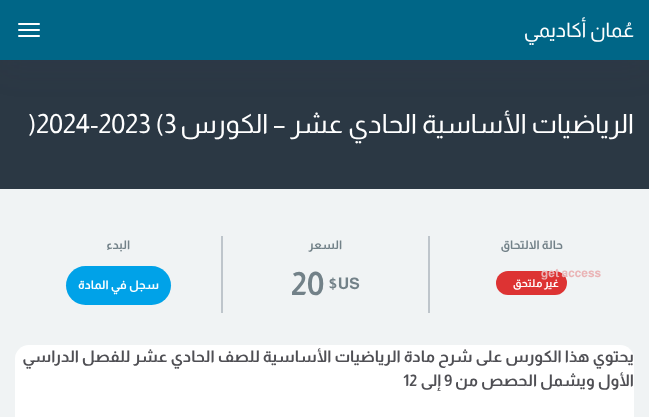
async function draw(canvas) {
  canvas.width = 649;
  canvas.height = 417;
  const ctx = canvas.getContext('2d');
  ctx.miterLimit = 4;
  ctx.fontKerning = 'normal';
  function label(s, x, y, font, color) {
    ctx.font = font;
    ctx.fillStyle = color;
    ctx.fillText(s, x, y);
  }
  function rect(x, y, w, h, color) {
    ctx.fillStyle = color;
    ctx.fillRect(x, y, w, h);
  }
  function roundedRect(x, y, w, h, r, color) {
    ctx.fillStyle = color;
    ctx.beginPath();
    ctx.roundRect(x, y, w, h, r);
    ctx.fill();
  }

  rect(0, 0, 649, 417, '#f0f3f4');
  rect(0, 60, 649, 129, '#2b3844');
  ctx.fillStyle = '#523f6914';
  ctx.filter = 'blur(15px)';
  ctx.beginPath();
  ctx.rect(0, 10, 649, 60);
  ctx.fill();
  ctx.filter = 'none';
  rect(0, 0, 649, 60, '#006687');
  ctx.direction = 'rtl';
  label('عُمان أكاديمي', 634, 37, '20px Almarai', '#fff');
  roundedRect(18, 29, 22, 2, 1, '#fff');
  roundedRect(18, 23, 22, 2, 1, '#fff');
  roundedRect(18, 35, 22, 2, 1, '#fff');
  label('الرياضيات الأساسية الحادي عشر – الكورس', 634, 133, '26.5px Almarai', '#fff');
  ctx.direction = 'ltr';
  label(')2024-2023 (3', 28, 133, '26.5px Almarai', '#fff');
  rect(428, 236, 2, 77, '#bec5cb');
  ctx.direction = 'rtl';
  label('حالة الالتحاق', 563, 249, 'bold 12px Almarai', '#728188');
  roundedRect(496, 271, 71, 24, 12, '#d33');
  ctx.letterSpacing = '0.5px';
  ctx.wordSpacing = '-1px';
  label('غير ملتحق', 559, 287, 'bold 11px Almarai', '#fff');
  rect(221, 236, 2, 77, '#bec5cb');
  ctx.letterSpacing = '0px';
  ctx.wordSpacing = '0px';
  label('السعر', 342, 249, 'bold 12px Almarai', '#728188');
  ctx.direction = 'ltr';
  label('$US', 328, 289, 'bold 16px Almarai', '#728188');
  label('20', 291, 295, 'bold 32px Almarai', '#728188');
  ctx.direction = 'rtl';
  label('البدء', 130, 249, 'bold 12px Almarai', '#728188');
  roundedRect(66, 266, 105, 39, 19.5, '#00a2e8');
  label('سجل في المادة', 159, 289, 'bold 12px Almarai', '#fff');
  roundedRect(15, 345, 619, 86, 14, '#fff');
  label('يحتوي هذا الكورس على شرح مادة الرياضيات الأساسية للصف الحادي عشر للفصل الدراسي', 634, 362, 'bold 16px Almarai', '#4f4f54');
  label('الأول ويشمل الحصص من', 634, 386, 'bold 16px Almarai', '#4f4f54');
  ctx.direction = 'ltr';
  label('9', 444, 386, 'bold 16px Almarai', '#4f4f54');
  ctx.direction = 'rtl';
  label('إلى', 441, 386, 'bold 16px Almarai', '#4f4f54');
  ctx.direction = 'ltr';
  label('12', 403, 386, 'bold 16px Almarai', '#4f4f54');
  label('get access', 541, 277, 'bold 12px Almarai', '#eab4b6');
}

draw(document.querySelector('canvas'));
